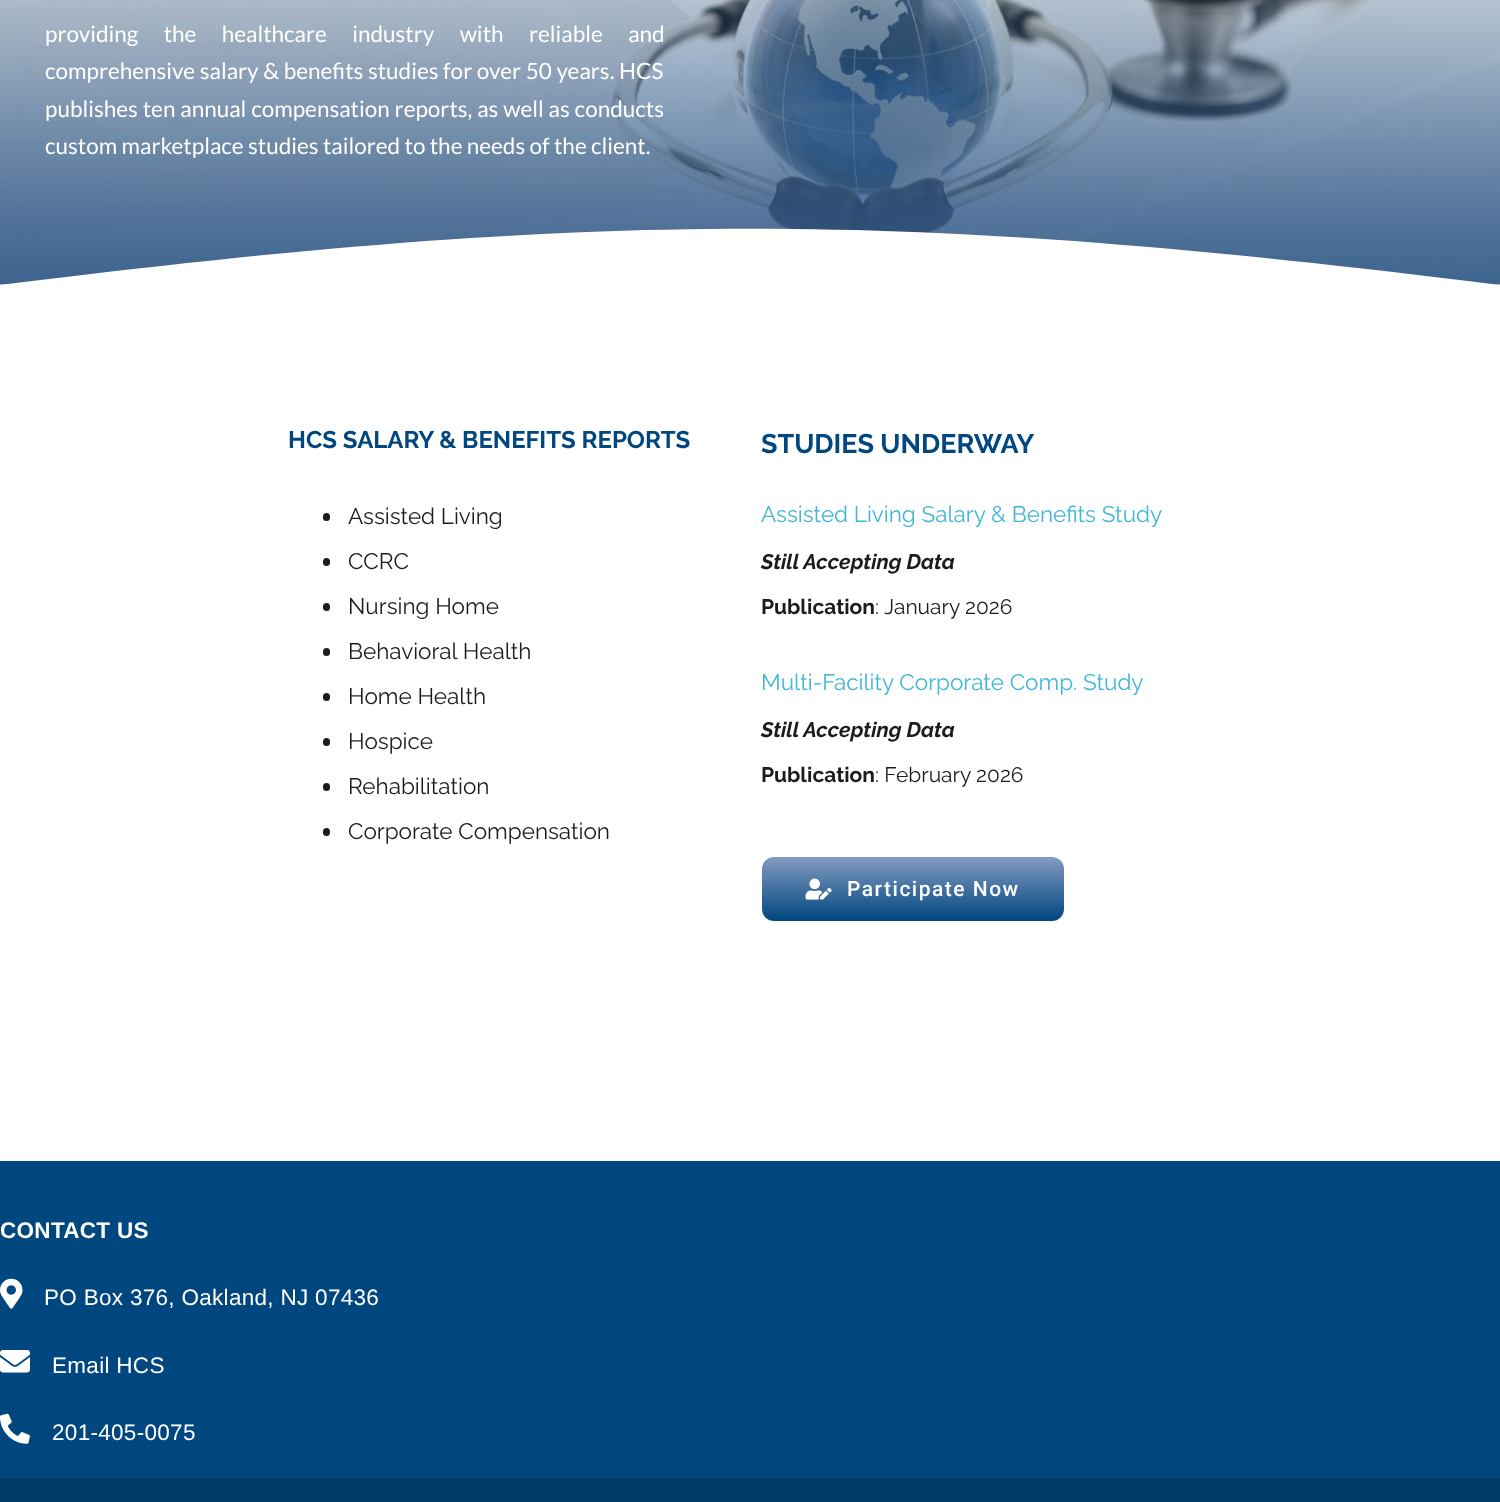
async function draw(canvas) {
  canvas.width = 1500;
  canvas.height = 1502;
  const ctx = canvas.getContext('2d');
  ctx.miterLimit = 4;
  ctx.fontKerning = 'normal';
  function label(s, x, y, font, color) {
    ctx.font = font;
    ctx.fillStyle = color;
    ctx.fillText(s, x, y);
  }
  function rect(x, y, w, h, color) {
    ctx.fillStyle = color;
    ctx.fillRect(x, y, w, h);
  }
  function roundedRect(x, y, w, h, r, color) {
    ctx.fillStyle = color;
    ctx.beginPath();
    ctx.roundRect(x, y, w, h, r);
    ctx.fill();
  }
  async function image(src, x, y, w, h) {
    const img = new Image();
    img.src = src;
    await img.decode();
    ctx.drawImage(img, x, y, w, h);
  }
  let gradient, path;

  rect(0, 0, 1500, 1502, '#fff');
  await image('assets/img1.png', 0, 0, 1500, 285);
  ctx.wordSpacing = '21px';
  label('providing the healthcare industry with reliable and', 45, 42, '22.5px Lato', '#fff');
  ctx.wordSpacing = '0.25px';
  label('comprehensive salary & benefits studies for over 50 years. HCS', 45, 79, '22.5px Lato', '#fff');
  ctx.wordSpacing = '0.5px';
  label('publishes ten annual compensation reports, as well as conducts', 45, 117, '22.5px Lato', '#fff');
  ctx.wordSpacing = '0px';
  label('custom marketplace studies tailored to the needs of the client.', 45, 154, '22.5px Lato', '#fff');
  path = new Path2D('M0 285C600 210 900 210 1500 285Z');
  ctx.fill(path);
  label('HCS SALARY & BENEFITS REPORTS', 288, 448, 'bold 24px Raleway', '#00467f');
  roundedRect(323, 513, 7, 8, 3.5, '#1c1c1c');
  label('Assisted Living', 348, 524, '22.5px Raleway', '#1c1c1c');
  roundedRect(323, 558, 7, 8, 3.5, '#1c1c1c');
  label('CCRC', 348, 569, '22.5px Raleway', '#1c1c1c');
  roundedRect(323, 603, 7, 8, 3.5, '#1c1c1c');
  label('Nursing Home', 348, 614, '22.5px Raleway', '#1c1c1c');
  roundedRect(323, 648, 7, 8, 3.5, '#1c1c1c');
  label('Behavioral Health', 348, 659, '22.5px Raleway', '#1c1c1c');
  roundedRect(323, 693, 7, 8, 3.5, '#1c1c1c');
  label('Home Health', 348, 704, '22.5px Raleway', '#1c1c1c');
  roundedRect(323, 738, 7, 8, 3.5, '#1c1c1c');
  label('Hospice', 348, 749, '22.5px Raleway', '#1c1c1c');
  roundedRect(323, 783, 7, 8, 3.5, '#1c1c1c');
  label('Rehabilitation', 348, 794, '22.5px Raleway', '#1c1c1c');
  roundedRect(323, 828, 7, 8, 3.5, '#1c1c1c');
  label('Corporate Compensation', 348, 839, '22.5px Raleway', '#1c1c1c');
  label('STUDIES UNDERWAY', 761, 453, 'bold 26.9px Raleway', '#00467f');
  label('Assisted Living Salary & Benefits Study', 761, 522, '22.5px Raleway', '#41b7d8');
  label('Still Accepting Data', 761, 569, 'italic 100 21px Raleway', '#1c1c1c');
  label('Publication', 761, 614, 'bold 21px Raleway', '#1c1c1c');
  label(':', 875, 614, '21px Raleway', '#1c1c1c');
  label('January 2026', 884, 614, '21px Raleway', '#1c1c1c');
  label('Multi-Facility Corporate Comp. Study', 761, 690, '22.5px Raleway', '#41b7d8');
  label('Still Accepting Data', 761, 737, 'italic 100 21px Raleway', '#1c1c1c');
  label('Publication', 761, 782, 'bold 21px Raleway', '#1c1c1c');
  label(': February 2026', 875, 782, '21px Raleway', '#1c1c1c');
  gradient = ctx.createLinearGradient(913, 857, 913, 921);
  gradient.addColorStop(0, '#839bc1');
  gradient.addColorStop(1, '#00467f');
  ctx.fillStyle = gradient;
  ctx.beginPath();
  ctx.roundRect(762, 857, 302, 64, 12);
  ctx.fill();
  await image('assets/img2.png', 805, 878, 27, 22);
  ctx.letterSpacing = '1.5px';
  label('Participate Now', 847, 896, '500 21px Roboto', '#fff');
  rect(0, 1161, 1500, 317, '#00467f');
  ctx.letterSpacing = '0.3px';
  label('CONTACT US', 0, 1238, 'bold 22.5px Liberation Sans', '#fff');
  await image('assets/img3.png', 0, 1278, 23, 31);
  label('PO Box 376, Oakland, NJ 07436', 44, 1305, '22.5px Liberation Sans', '#fff');
  await image('assets/img4.png', 0, 1350, 30, 23);
  label('Email HCS', 52, 1373, '22.5px Liberation Sans', '#fff');
  await image('assets/img5.png', 0, 1413, 30, 31);
  label('201-405-0075', 52, 1440, '22.5px Liberation Sans', '#fff');
  rect(0, 1478, 1500, 24, '#003b68');
}

draw(document.querySelector('canvas'));
